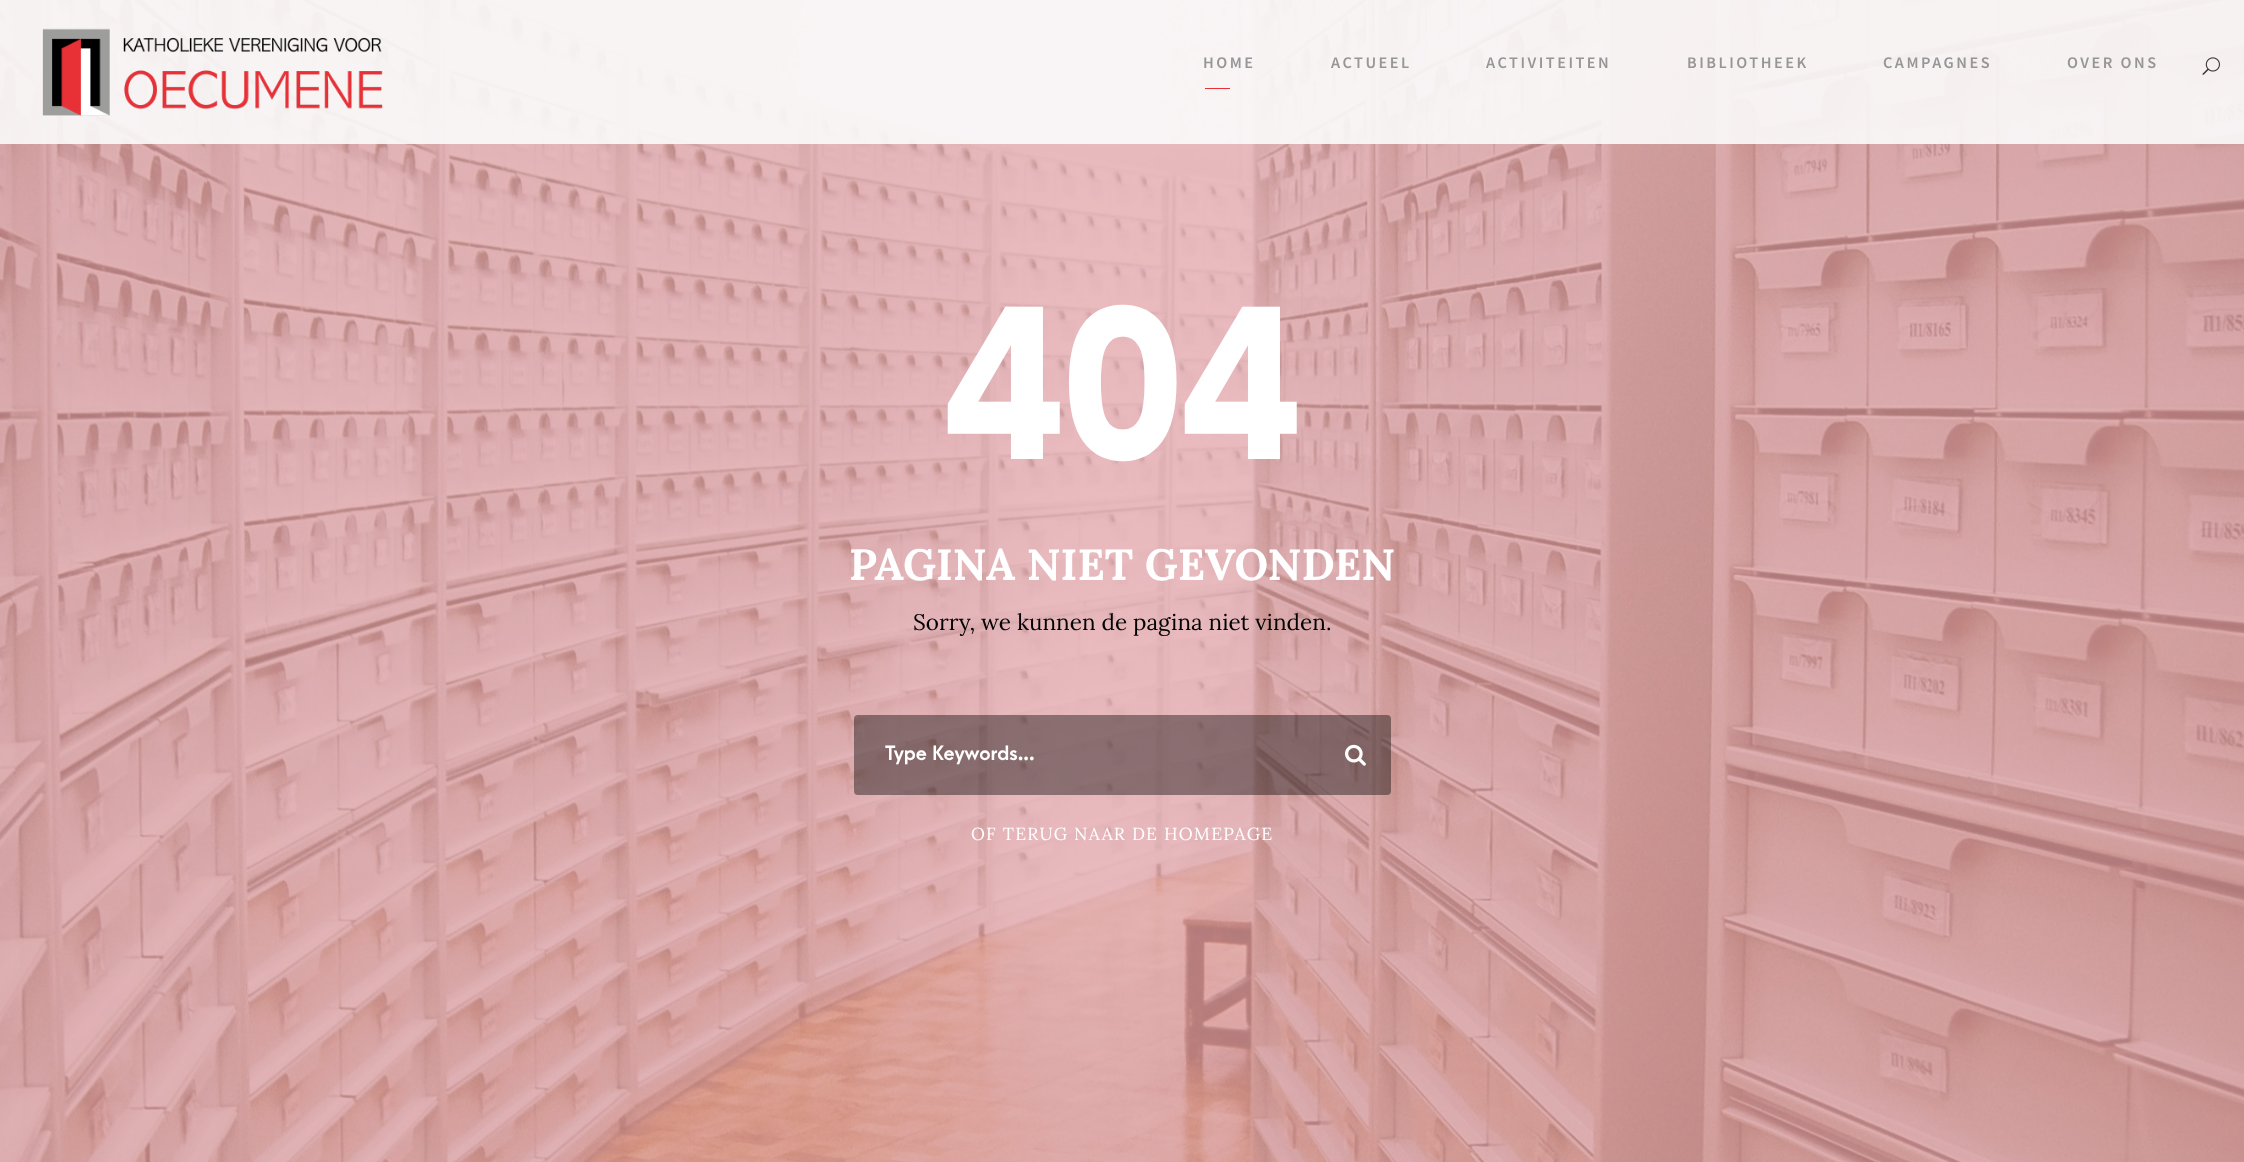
async function draw(canvas) {
  canvas.width = 2244;
  canvas.height = 1162;
  const ctx = canvas.getContext('2d');
  ctx.miterLimit = 4;
  ctx.fontKerning = 'normal';
  function label(s, x, y, font, color) {
    ctx.font = font;
    ctx.fillStyle = color;
    ctx.fillText(s, x, y);
  }
  function rect(x, y, w, h, color) {
    ctx.fillStyle = color;
    ctx.fillRect(x, y, w, h);
  }
  function roundedRect(x, y, w, h, r, color) {
    ctx.fillStyle = color;
    ctx.beginPath();
    ctx.roundRect(x, y, w, h, r);
    ctx.fill();
  }
  async function image(src, x, y, w, h) {
    const img = new Image();
    img.src = src;
    await img.decode();
    ctx.drawImage(img, x, y, w, h);
  }

  rect(0, 0, 2244, 1162, '#e8a4a6');
  await image('assets/img3.png', 0, 0, 2244, 1162);
  rect(0, 0, 2244, 144, '#fbfbfbe6');
  await image('assets/img1.png', 42, 28, 341, 88);
  ctx.letterSpacing = '2.5px';
  label('HOME', 1203, 68, '600 16.25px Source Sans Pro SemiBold', '#969696');
  label('ACTUEEL', 1331, 68, '600 16.25px Source Sans Pro SemiBold', '#969696');
  label('ACTIVITEITEN', 1486, 68, '600 16.25px Source Sans Pro SemiBold', '#969696');
  label('BIBLIOTHEEK', 1687, 68, '600 16.25px Source Sans Pro SemiBold', '#969696');
  label('CAMPAGNES', 1883, 68, '600 16.25px Source Sans Pro SemiBold', '#969696');
  label('OVER ONS', 2067, 68, '600 16.25px Source Sans Pro SemiBold', '#969696');
  rect(1205, 88, 25, 1, '#e73137');
  await image('assets/img2.png', 2202, 57, 18, 18);
  ctx.letterSpacing = '0px';
  label('404', 945, 459, '900 188px "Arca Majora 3"', '#fff');
  label('PAGINA NIET GEVONDEN', 849, 580, 'bold 43.75px Lora', '#fff');
  label('Sorry, we kunnen de pagina niet vinden.', 913, 630, '22.5px Lora', '#000');
  roundedRect(854, 715, 537, 80, 4, '#00000066');
  label('Type Keywords...', 885, 760, 'bold 18.75px "Arca Majora 3"', '#fff');
  await image('assets/img4.png', 1345, 744, 21, 22);
  ctx.letterSpacing = '1.25px';
  label('OF TERUG NAAR DE HOMEPAGE', 971, 840, '17.5px Lora', '#fff');
}

draw(document.querySelector('canvas'));
